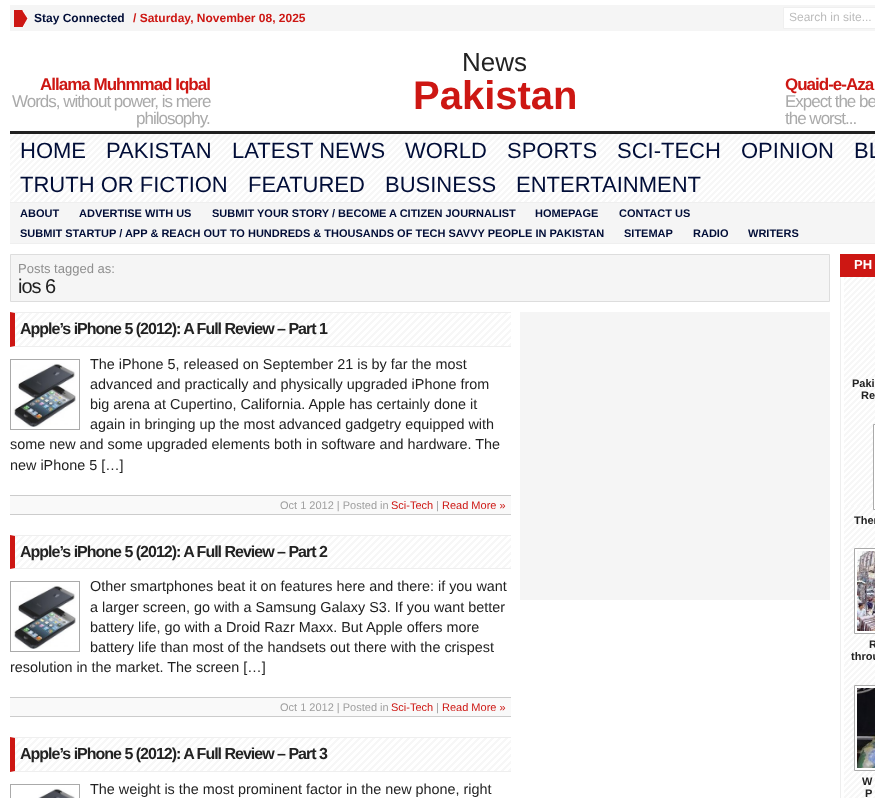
async function draw(canvas) {
  canvas.width = 875;
  canvas.height = 798;
  const ctx = canvas.getContext('2d');
  ctx.miterLimit = 4;
  ctx.fontKerning = 'normal';
  function label(s, x, y, font, color) {
    ctx.font = font;
    ctx.fillStyle = color;
    ctx.fillText(s, x, y);
  }
  function rect(x, y, w, h, color) {
    ctx.fillStyle = color;
    ctx.fillRect(x, y, w, h);
  }
  async function image(src, x, y, w, h) {
    const img = new Image();
    img.src = src;
    await img.decode();
    ctx.drawImage(img, x, y, w, h);
  }
  let path;

  rect(0, 0, 875, 798, '#fff');
  rect(10, 5, 865, 26, '#f5f5f5');
  await image('assets/img1.png', 14, 10, 14, 17);
  label('Stay Connected', 34, 22, 'bold 12px Liberation Sans', '#010d37');
  label('/ Saturday, November 08, 2025', 133, 22, 'bold 12px Liberation Sans', '#cd1713');
  ctx.fillStyle = '#fff';
  ctx.beginPath();
  ctx.rect(783.5, 7.5, 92, 21);
  ctx.fill();
  ctx.strokeStyle = '#efefef';
  ctx.stroke();
  label('Search in site...', 789, 21, '12px Liberation Sans', '#bcbcbc');
  rect(10, 131, 865, 3, '#222');
  ctx.letterSpacing = '-1px';
  label('Allama Muhmmad Iqbal', 40, 90, 'bold 17px Liberation Sans', '#cd1713');
  label('Words, without power, is mere', 12, 107, '17px Liberation Sans', '#aaa');
  label('philosophy.', 136, 124, '17px Liberation Sans', '#aaa');
  ctx.letterSpacing = '0px';
  label('News', 462, 71, '26px Liberation Sans', '#222');
  label('Pakistan', 413, 109, 'bold 40px Liberation Sans', '#cd1713');
  ctx.letterSpacing = '-1px';
  label('Quaid-e-Aza', 785, 90, 'bold 17px Liberation Sans', '#cd1713');
  label('Expect the be', 785, 107, '17px Liberation Sans', '#aaa');
  label('the worst...', 785, 124, '17px Liberation Sans', '#aaa');
  await image('assets/img2.png', 10, 134, 865, 68);
  rect(10, 202, 865, 1, '#efefef');
  ctx.letterSpacing = '0px';
  label('HOME', 20, 158, '22px Liberation Sans', '#010d37');
  label('PAKISTAN', 106, 158, '22px Liberation Sans', '#010d37');
  label('LATEST NEWS', 232, 158, '22px Liberation Sans', '#010d37');
  label('WORLD', 405, 158, '22px Liberation Sans', '#010d37');
  label('SPORTS', 507, 158, '22px Liberation Sans', '#010d37');
  label('SCI-TECH', 617, 158, '22px Liberation Sans', '#010d37');
  label('OPINION', 741, 158, '22px Liberation Sans', '#010d37');
  label('BL', 854, 158, '22px Liberation Sans', '#010d37');
  label('TRUTH OR FICTION', 20, 192, '22px Liberation Sans', '#010d37');
  label('FEATURED', 248, 192, '22px Liberation Sans', '#010d37');
  label('BUSINESS', 385, 192, '22px Liberation Sans', '#010d37');
  label('ENTERTAINMENT', 516, 192, '22px Liberation Sans', '#010d37');
  rect(10, 203, 865, 40, '#f5f5f5');
  rect(10, 243, 865, 1, '#efefef');
  label('ABOUT', 20, 217, 'bold 11px Liberation Sans', '#010d37');
  label('ADVERTISE WITH US', 79, 217, 'bold 11px Liberation Sans', '#010d37');
  label('SUBMIT YOUR STORY / BECOME A CITIZEN JOURNALIST', 212, 217, 'bold 11px Liberation Sans', '#010d37');
  label('HOMEPAGE', 535, 217, 'bold 11px Liberation Sans', '#010d37');
  label('CONTACT US', 619, 217, 'bold 11px Liberation Sans', '#010d37');
  label('SUBMIT STARTUP / APP & REACH OUT TO HUNDREDS & THOUSANDS OF TECH SAVVY PEOPLE IN PAKISTAN', 20, 237, 'bold 11px Liberation Sans', '#010d37');
  label('SITEMAP', 624, 237, 'bold 11px Liberation Sans', '#010d37');
  label('RADIO', 693, 237, 'bold 11px Liberation Sans', '#010d37');
  label('WRITERS', 748, 237, 'bold 11px Liberation Sans', '#010d37');
  ctx.fillStyle = '#f5f5f5';
  ctx.beginPath();
  ctx.rect(10.5, 254.5, 819, 47);
  ctx.fill();
  ctx.strokeStyle = '#ddd';
  ctx.stroke();
  label('Posts tagged as:', 18, 273, '13px Liberation Sans', '#8f8f8f');
  ctx.letterSpacing = '-1px';
  label('ios 6', 18, 293, '20px Liberation Sans', '#222');
  await image('assets/img3.png', 10, 312, 501, 35);
  ctx.fillStyle = '#efefef';
  path = new Path2D('M10 312H511V313H15Z');
  ctx.fill(path);
  path = new Path2D('M511 347H10L15 346H511Z');
  ctx.fill(path);
  ctx.fillStyle = '#cd1713';
  path = new Path2D('M10 347V312L15 313V346Z');
  ctx.fill(path);
  label('Apple’s iPhone 5 (2012): A Full Review – Part 1', 20, 334, 'bold 16px Liberation Sans', '#222');
  ctx.letterSpacing = '0px';
  label('The iPhone 5, released on September 21 is by far the most', 90, 369, '14.4px Liberation Sans', '#222');
  label('advanced and practically and physically upgraded iPhone from', 90, 389, '14.4px Liberation Sans', '#222');
  label('big arena at Cupertino, California. Apple has certainly done it', 90, 409, '14.4px Liberation Sans', '#222');
  label('again in bringing up the most advanced gadgetry equipped with', 90, 429, '14.4px Liberation Sans', '#222');
  label('some new and some upgraded elements both in software and hardware. The', 10, 449, '14.4px Liberation Sans', '#222');
  label('new iPhone 5 […]', 10, 470, '14.4px Liberation Sans', '#222');
  ctx.strokeStyle = '#aaa';
  ctx.strokeRect(10.5, 359.5, 69, 70);
  await image('assets/img4.png', 13, 363, 63, 64);
  rect(10, 496, 501, 18, '#f9f9f9');
  rect(10, 495, 501, 1, '#ccc');
  rect(10, 514, 501, 1, '#ccc');
  label('Oct 1 2012 | Posted in', 280, 509, '11px Liberation Sans', '#9f9f9f');
  label('Sci-Tech', 391, 509, '11px Liberation Sans', '#cd1713');
  label('|', 436, 509, '11px Liberation Sans', '#9f9f9f');
  label('Read More »', 442, 509, '11px Liberation Sans', '#cd1713');
  await image('assets/img5.png', 10, 535, 501, 34);
  ctx.fillStyle = '#efefef';
  path = new Path2D('M10 535H511V536H15Z');
  ctx.fill(path);
  path = new Path2D('M511 569H10L15 568H511Z');
  ctx.fill(path);
  ctx.fillStyle = '#cd1713';
  path = new Path2D('M10 569V535L15 536V568Z');
  ctx.fill(path);
  ctx.letterSpacing = '-1px';
  label('Apple’s iPhone 5 (2012): A Full Review – Part 2', 20, 557, 'bold 16px Liberation Sans', '#222');
  ctx.letterSpacing = '0px';
  label('Other smartphones beat it on features here and there: if you want', 90, 591, '14.4px Liberation Sans', '#222');
  label('a larger screen, go with a Samsung Galaxy S3. If you want better', 90, 612, '14.4px Liberation Sans', '#222');
  label('battery life, go with a Droid Razr Maxx. But Apple offers more', 90, 632, '14.4px Liberation Sans', '#222');
  label('battery life than most of the handsets out there with the crispest', 90, 652, '14.4px Liberation Sans', '#222');
  label('resolution in the market. The screen […]', 10, 672, '14.4px Liberation Sans', '#222');
  ctx.strokeRect(10.5, 581.5, 69, 70);
  await image('assets/img4.png', 13, 585, 63, 64);
  rect(10, 698, 501, 18, '#f9f9f9');
  rect(10, 697, 501, 1, '#ccc');
  rect(10, 716, 501, 1, '#ccc');
  label('Oct 1 2012 | Posted in', 280, 711, '11px Liberation Sans', '#9f9f9f');
  label('Sci-Tech', 391, 711, '11px Liberation Sans', '#cd1713');
  label('|', 436, 711, '11px Liberation Sans', '#9f9f9f');
  label('Read More »', 442, 711, '11px Liberation Sans', '#cd1713');
  await image('assets/img3.png', 10, 737, 501, 35);
  ctx.fillStyle = '#efefef';
  path = new Path2D('M10 737H511V738H15Z');
  ctx.fill(path);
  path = new Path2D('M511 772H10L15 771H511Z');
  ctx.fill(path);
  ctx.fillStyle = '#cd1713';
  path = new Path2D('M10 772V737L15 738V771Z');
  ctx.fill(path);
  ctx.letterSpacing = '-1px';
  label('Apple’s iPhone 5 (2012): A Full Review – Part 3', 20, 759, 'bold 16px Liberation Sans', '#222');
  ctx.strokeRect(10.5, 784.5, 69, 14);
  await image('assets/img6.png', 38, 788, 37, 10);
  ctx.letterSpacing = '0px';
  label('The weight is the most prominent factor in the new phone, right', 90, 794, '14.4px Liberation Sans', '#222');
  rect(520, 312, 310, 288, '#f5f5f5');
  await image('assets/img7.png', 840, 277, 35, 521);
  rect(840, 254, 35, 23, '#cd1713');
  label('PH', 854, 269, 'bold 13px Liberation Sans', '#fff');
  label('Paki', 852, 387, 'bold 11px Liberation Sans', '#222');
  label('Re', 861, 399, 'bold 11px Liberation Sans', '#222');
  ctx.fillStyle = '#fff';
  ctx.beginPath();
  ctx.rect(873.5, 424.5, 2, 85);
  ctx.fill();
  ctx.stroke();
  label('Ther', 854, 524, 'bold 11px Liberation Sans', '#222');
  ctx.fillStyle = '#fff';
  ctx.beginPath();
  ctx.rect(854.5, 548.5, 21, 85);
  ctx.fill();
  ctx.stroke();
  await image('assets/img8.png', 857, 551, 18, 80);
  label('R', 869, 648, 'bold 11px Liberation Sans', '#222');
  label('throu', 851, 660, 'bold 11px Liberation Sans', '#222');
  ctx.fillStyle = '#fff';
  ctx.beginPath();
  ctx.rect(854.5, 685.5, 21, 85);
  ctx.fill();
  ctx.stroke();
  await image('assets/img9.png', 857, 688, 18, 80);
  label('W', 862, 785, 'bold 11px Liberation Sans', '#222');
  label('P', 865, 797, 'bold 11px Liberation Sans', '#222');
}

draw(document.querySelector('canvas'));
